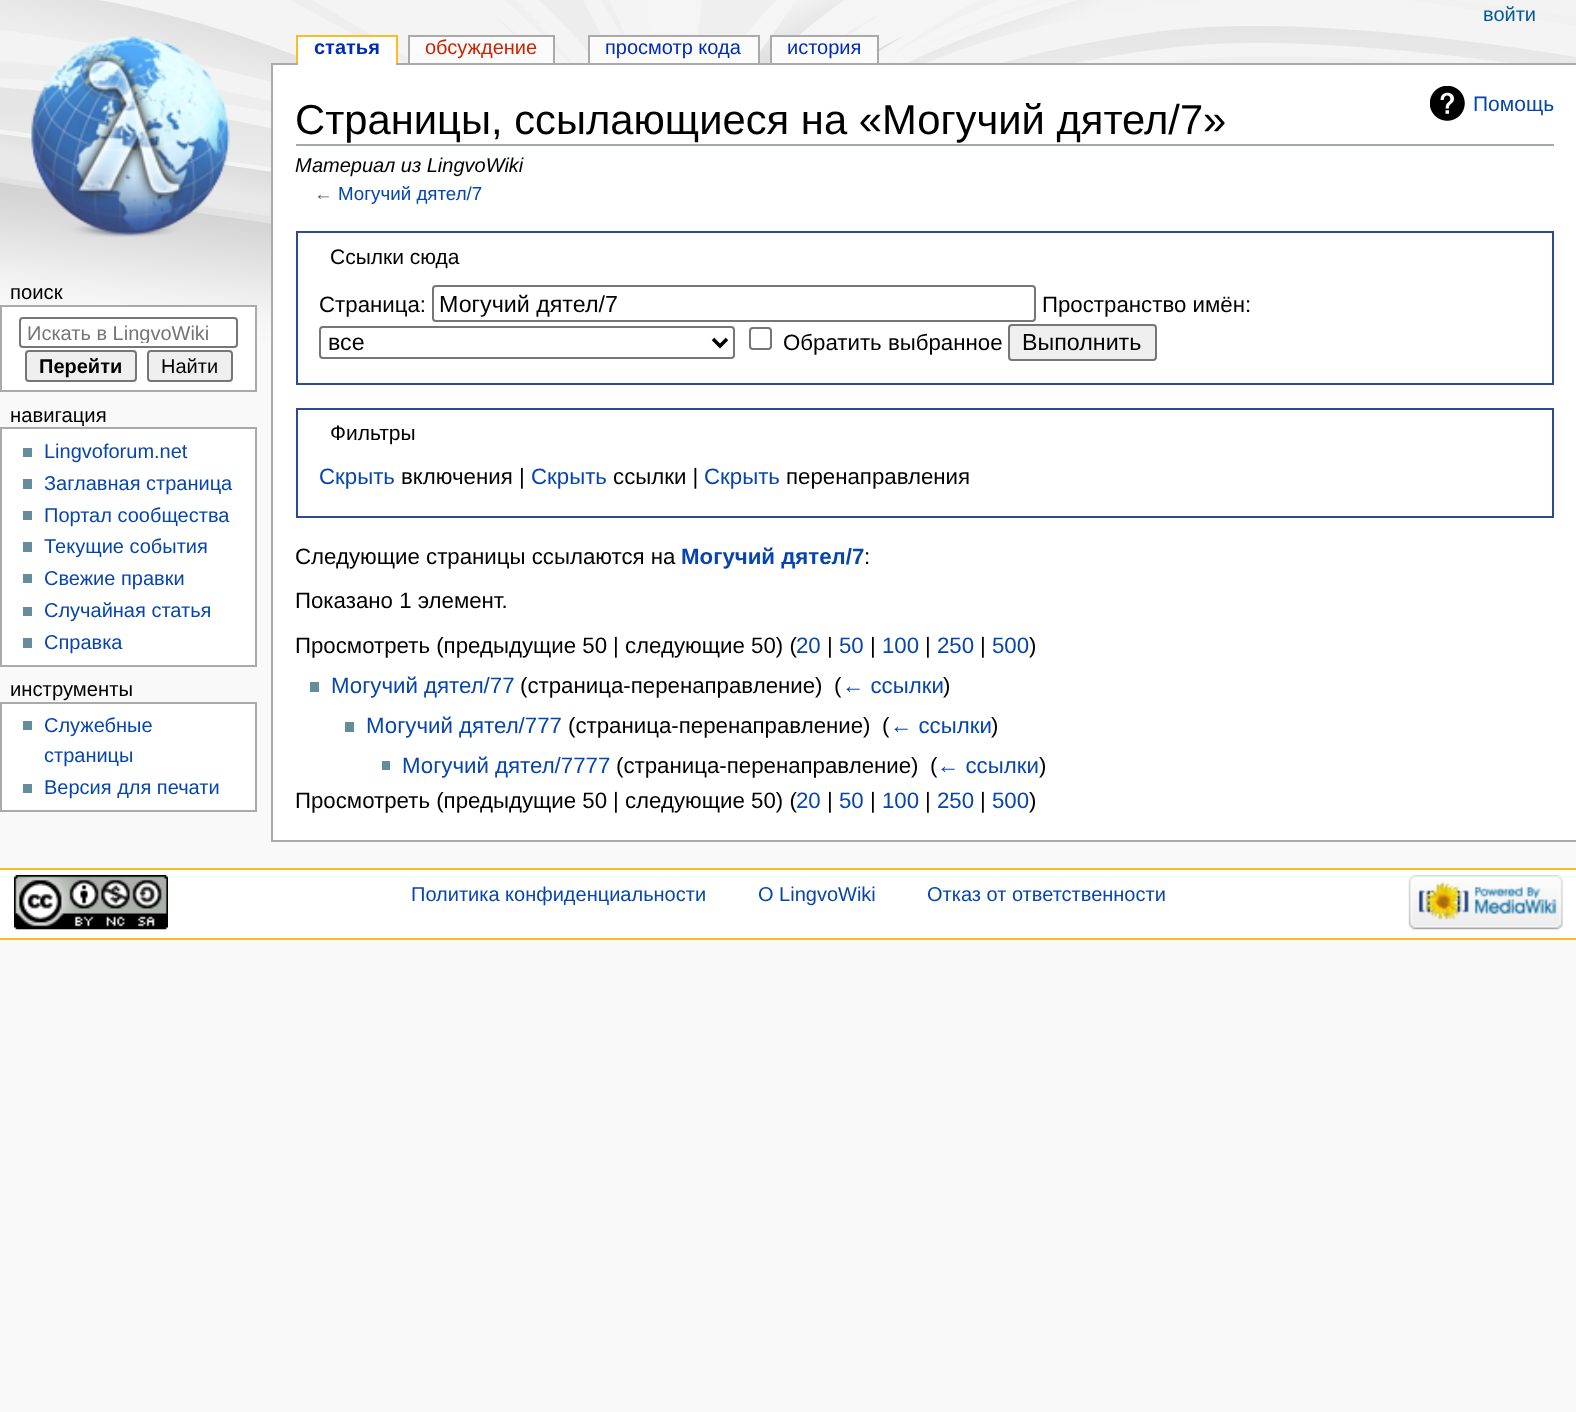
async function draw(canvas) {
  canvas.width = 1576;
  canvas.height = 1412;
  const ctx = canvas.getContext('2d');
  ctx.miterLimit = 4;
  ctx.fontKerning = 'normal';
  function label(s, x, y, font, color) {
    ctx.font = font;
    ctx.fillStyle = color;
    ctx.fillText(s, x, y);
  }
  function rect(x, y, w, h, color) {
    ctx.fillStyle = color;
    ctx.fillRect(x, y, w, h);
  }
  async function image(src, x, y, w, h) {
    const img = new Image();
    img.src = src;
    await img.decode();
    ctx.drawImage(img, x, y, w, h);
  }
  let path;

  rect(0, 0, 1576, 1412, '#f9f9f9');
  await image('assets/img1.png', 0, 0, 1576, 367);
  label('войти', 1483, 21, '20px Liberation Sans', '#005896');
  await image('assets/img2.png', 31, 36, 199, 201);
  rect(271, 63, 1305, 2, '#aaa');
  rect(298, 37, 98, 28, '#fff');
  label('статья', 314, 54, 'bold 20px Liberation Sans', '#002bb8');
  rect(296, 35, 101, 2, '#fabd23');
  rect(396, 35, 2, 28, '#fabd23');
  rect(296, 35, 2, 28, '#fabd23');
  rect(410, 37, 143, 26, '#fbfbfb');
  label('обсуждение', 425, 54, '20px Liberation Sans', '#c20');
  rect(408, 35, 147, 2, '#aaa');
  rect(553, 35, 2, 28, '#aaa');
  rect(408, 35, 2, 28, '#aaa');
  rect(590, 37, 168, 26, '#fbfbfb');
  label('просмотр кода', 605, 54, '20px Liberation Sans', '#002bb8');
  rect(588, 35, 172, 2, '#aaa');
  rect(758, 35, 2, 28, '#aaa');
  rect(588, 35, 2, 28, '#aaa');
  rect(772, 37, 105, 26, '#fbfbfb');
  label('история', 787, 54, '20px Liberation Sans', '#002bb8');
  rect(770, 35, 109, 2, '#aaa');
  rect(877, 35, 2, 28, '#aaa');
  rect(770, 35, 2, 28, '#aaa');
  label('поиск', 10, 299, '20.25px Liberation Sans', '#000');
  ctx.fillStyle = '#fff';
  ctx.beginPath();
  ctx.rect(1, 306, 255, 85);
  ctx.fill();
  ctx.strokeStyle = '#aaa';
  ctx.lineWidth = 2;
  ctx.stroke();
  ctx.beginPath();
  ctx.roundRect(20, 318, 217, 29, 3);
  ctx.strokeStyle = '#767676';
  ctx.stroke();
  ctx.save();
  ctx.beginPath();
  ctx.rect(26, 322, 184, 21);
  ctx.clip();
  label('Искать в LingvoWiki', 27, 340, '20px Liberation Sans', '#757575');
  ctx.restore();
  ctx.fillStyle = '#efefef';
  ctx.beginPath();
  ctx.roundRect(26, 351, 110, 30, 3);
  ctx.fill();
  ctx.stroke();
  label('Перейти', 39, 373, 'bold 20px Liberation Sans', '#000');
  ctx.fillStyle = '#efefef';
  ctx.beginPath();
  ctx.roundRect(148, 351, 84, 30, 3);
  ctx.fill();
  ctx.stroke();
  label('Найти', 161, 373, '20px Liberation Sans', '#000');
  label('навигация', 10, 422, '20.25px Liberation Sans', '#000');
  ctx.fillStyle = '#fff';
  ctx.beginPath();
  ctx.rect(1, 428, 255, 238);
  ctx.fill();
  ctx.strokeStyle = '#aaa';
  ctx.stroke();
  rect(23, 448, 9, 9, '#638c9c');
  label('Lingvoforum.net', 44, 458, '20px Liberation Sans', '#0645ad');
  rect(23, 479, 9, 10, '#638c9c');
  label('Заглавная страница', 44, 490, '20px Liberation Sans', '#0645ad');
  rect(23, 511, 9, 9, '#638c9c');
  label('Портал сообщества', 44, 522, '20px Liberation Sans', '#0645ad');
  rect(23, 542, 9, 10, '#638c9c');
  label('Текущие события', 44, 553, '20px Liberation Sans', '#0645ad');
  rect(23, 574, 9, 9, '#638c9c');
  label('Свежие правки', 44, 585, '20px Liberation Sans', '#0645ad');
  rect(23, 607, 9, 9, '#638c9c');
  label('Случайная статья', 44, 617, '20px Liberation Sans', '#0645ad');
  rect(23, 638, 9, 10, '#638c9c');
  label('Справка', 44, 649, '20px Liberation Sans', '#0645ad');
  label('инструменты', 10, 696, '20.25px Liberation Sans', '#000');
  ctx.fillStyle = '#fff';
  ctx.beginPath();
  ctx.rect(1, 703, 255, 108);
  ctx.fill();
  ctx.stroke();
  rect(23, 721, 9, 9, '#638c9c');
  label('Служебные', 44, 732, '20px Liberation Sans', '#0645ad');
  label('страницы', 44, 762, '20px Liberation Sans', '#0645ad');
  rect(23, 784, 9, 9, '#638c9c');
  label('Версия для печати', 44, 794, '20px Liberation Sans', '#0645ad');
  rect(273, 65, 1303, 775, '#fff');
  rect(271, 840, 1305, 2, '#aaa');
  rect(271, 63, 2, 779, '#aaa');
  rect(296, 144, 1258, 2, '#a2a9b1');
  label('Страницы, ссылающиеся на «Могучий дятел/7»', 295, 134, '41.75px Liberation Sans', '#000');
  await image('assets/img3.png', 1430, 86, 35, 35);
  label('Помощь', 1473, 111, '21px Liberation Sans', '#0645ad');
  label('Материал из LingvoWiki', 295, 172, 'italic 20px Liberation Sans', '#000');
  label('←', 314, 200, '18.75px Liberation Sans', '#54595d');
  label('Могучий дятел/7', 338, 200, '18.75px Liberation Sans', '#0645ad');
  ctx.strokeStyle = '#2a4b8d';
  ctx.strokeRect(297, 232, 1256, 152);
  label('Ссылки сюда', 330, 264, '21px Liberation Sans', '#000');
  label('Страница:', 319, 312, '22.25px Liberation Sans', '#000');
  ctx.beginPath();
  ctx.roundRect(433, 286, 602, 35, 3);
  ctx.strokeStyle = '#767676';
  ctx.stroke();
  label('Могучий дятел/7', 439, 312, '23.25px Liberation Sans', '#000');
  label('Пространство имён:', 1042, 312, '22.25px Liberation Sans', '#000');
  ctx.beginPath();
  ctx.roundRect(320, 327, 414, 31, 3);
  ctx.stroke();
  path = new Path2D('M713 339L720 346L727 339');
  ctx.strokeStyle = '#000';
  ctx.lineWidth = 3.5;
  ctx.stroke(path);
  label('все', 328, 350, '23.25px Liberation Sans', '#000');
  ctx.beginPath();
  ctx.roundRect(750, 328, 21, 21, 3);
  ctx.strokeStyle = '#767676';
  ctx.lineWidth = 2;
  ctx.stroke();
  label('Обратить выбранное', 783, 350, '22.25px Liberation Sans', '#000');
  ctx.fillStyle = '#efefef';
  ctx.beginPath();
  ctx.roundRect(1009, 325, 147, 35, 3);
  ctx.fill();
  ctx.stroke();
  label('Выполнить', 1022, 350, '23.25px Liberation Sans', '#000');
  ctx.strokeStyle = '#2a4b8d';
  ctx.strokeRect(297, 409, 1256, 108);
  label('Фильтры', 330, 440, '21px Liberation Sans', '#000');
  label('Скрыть', 319, 484, '22.25px Liberation Sans', '#0645ad');
  label('включения |', 401, 484, '22.25px Liberation Sans', '#000');
  label('Скрыть', 531, 484, '22.25px Liberation Sans', '#0645ad');
  label('ссылки |', 613, 484, '22.25px Liberation Sans', '#000');
  label('Скрыть', 704, 484, '22.25px Liberation Sans', '#0645ad');
  label('перенаправления', 786, 484, '22.25px Liberation Sans', '#000');
  label('Следующие страницы ссылаются на', 295, 564, '22.25px Liberation Sans', '#000');
  label('Могучий дятел/7', 681, 564, 'bold 22.25px Liberation Sans', '#0645ad');
  label(':', 864, 564, '22.25px Liberation Sans', '#000');
  label('Показано 1 элемент.', 295, 608, '22.25px Liberation Sans', '#000');
  label('Просмотреть (предыдущие 50', 295, 653, '22.25px Liberation Sans', '#000');
  label('| следующие 50) (', 613, 653, '22.25px Liberation Sans', '#000');
  label('20', 796, 653, '22.25px Liberation Sans', '#0645ad');
  label('|', 827, 653, '22.25px Liberation Sans', '#000');
  label('50', 839, 653, '22.25px Liberation Sans', '#0645ad');
  label('|', 870, 653, '22.25px Liberation Sans', '#000');
  label('100', 882, 653, '22.25px Liberation Sans', '#0645ad');
  label('|', 925, 653, '22.25px Liberation Sans', '#000');
  label('250', 937, 653, '22.25px Liberation Sans', '#0645ad');
  label('|', 980, 653, '22.25px Liberation Sans', '#000');
  label('500', 992, 653, '22.25px Liberation Sans', '#0645ad');
  label(')', 1029, 653, '22.25px Liberation Sans', '#000');
  rect(310, 682, 9, 10, '#638c9c');
  label('Могучий дятел/77', 331, 693, '22.25px Liberation Sans', '#0645ad');
  label('(страница-перенаправление) ', 520, 693, '22.25px Liberation Sans', '#000');
  label('(', 834, 693, '22.25px Liberation Sans', '#000');
  label('← ссылки', 842, 693, '22.25px Liberation Sans', '#0645ad');
  label(')', 943, 693, '22.25px Liberation Sans', '#000');
  rect(345, 722, 9, 10, '#638c9c');
  label('Могучий дятел/777', 366, 733, '22.25px Liberation Sans', '#0645ad');
  label('(страница-перенаправление) ', 568, 733, '22.25px Liberation Sans', '#000');
  label('(', 882, 733, '22.25px Liberation Sans', '#000');
  label('← ссылки', 890, 733, '22.25px Liberation Sans', '#0645ad');
  label(')', 991, 733, '22.25px Liberation Sans', '#000');
  rect(382, 761, 8, 9, '#638c9c');
  label('Могучий дятел/7777', 402, 773, '22.25px Liberation Sans', '#0645ad');
  label('(страница-перенаправление) ', 616, 773, '22.25px Liberation Sans', '#000');
  label('(', 930, 773, '22.25px Liberation Sans', '#000');
  label('← ссылки', 937, 773, '22.25px Liberation Sans', '#0645ad');
  label(')', 1039, 773, '22.25px Liberation Sans', '#000');
  label('Просмотреть (предыдущие 50', 295, 808, '22.25px Liberation Sans', '#000');
  label('| следующие 50) (', 613, 808, '22.25px Liberation Sans', '#000');
  label('20', 796, 808, '22.25px Liberation Sans', '#0645ad');
  label('|', 827, 808, '22.25px Liberation Sans', '#000');
  label('50', 839, 808, '22.25px Liberation Sans', '#0645ad');
  label('|', 870, 808, '22.25px Liberation Sans', '#000');
  label('100', 882, 808, '22.25px Liberation Sans', '#0645ad');
  label('|', 925, 808, '22.25px Liberation Sans', '#000');
  label('250', 937, 808, '22.25px Liberation Sans', '#0645ad');
  label('|', 980, 808, '22.25px Liberation Sans', '#000');
  label('500', 992, 808, '22.25px Liberation Sans', '#0645ad');
  label(')', 1029, 808, '22.25px Liberation Sans', '#000');
  rect(0, 870, 1576, 68, '#fff');
  rect(0, 868, 1576, 2, '#fabd23');
  rect(0, 938, 1576, 2, '#fabd23');
  await image('assets/img4.png', 14, 875, 154, 55);
  label('Политика конфиденциальности', 411, 901, '20px Liberation Sans', '#0645ad');
  label('О LingvoWiki', 758, 901, '20px Liberation Sans', '#0645ad');
  label('Отказ от ответственности', 927, 901, '20px Liberation Sans', '#0645ad');
  await image('assets/img5.png', 1408, 875, 155, 55);
}

draw(document.querySelector('canvas'));
